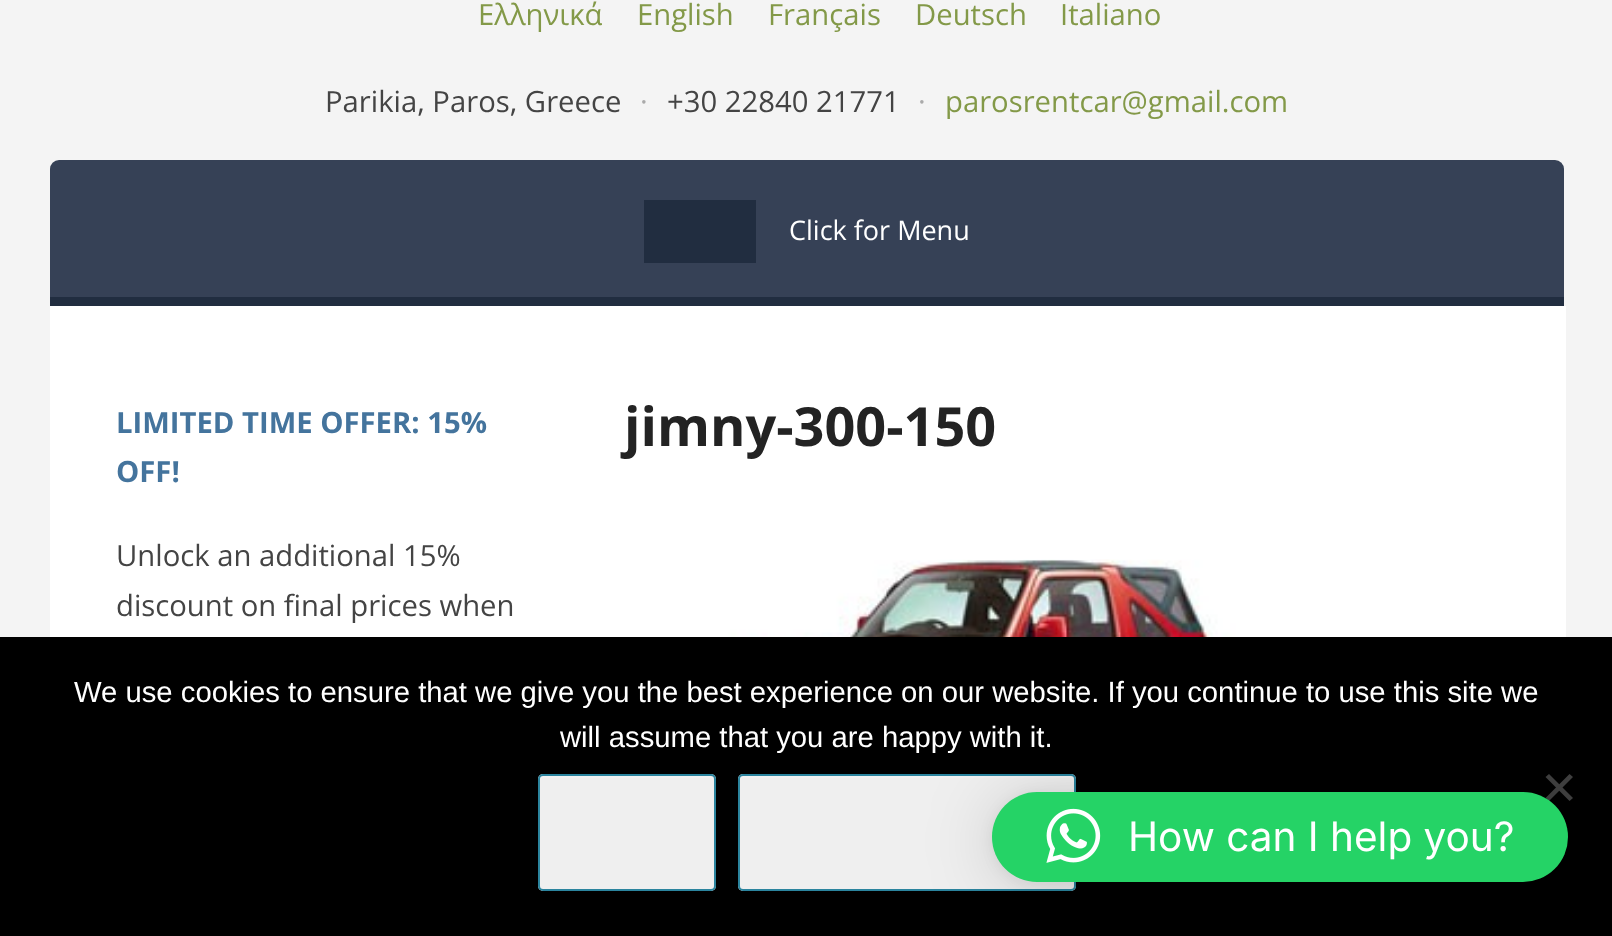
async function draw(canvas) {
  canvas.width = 1612;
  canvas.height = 936;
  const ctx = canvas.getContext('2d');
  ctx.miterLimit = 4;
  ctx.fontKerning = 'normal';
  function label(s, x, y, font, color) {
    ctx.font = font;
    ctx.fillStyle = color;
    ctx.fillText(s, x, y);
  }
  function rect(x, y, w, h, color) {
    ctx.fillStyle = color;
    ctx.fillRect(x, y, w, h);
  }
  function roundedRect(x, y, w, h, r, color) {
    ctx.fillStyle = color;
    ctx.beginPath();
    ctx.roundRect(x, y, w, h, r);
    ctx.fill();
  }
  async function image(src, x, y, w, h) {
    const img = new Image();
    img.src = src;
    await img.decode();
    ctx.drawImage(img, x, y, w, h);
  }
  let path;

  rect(0, 0, 1612, 936, '#f4f4f4');
  label('Ελληνικά', 478, 25, '29.25px Open Sans', '#839948');
  label('English', 637, 25, '29.25px Open Sans', '#839948');
  label('Français', 768, 25, '29.25px Open Sans', '#839948');
  label('Deutsch', 915, 25, '29.25px Open Sans', '#839948');
  label('Italiano', 1060, 25, '29.25px Open Sans', '#839948');
  label('Parikia, Paros, Greece', 325, 112, '29.25px Open Sans', '#444');
  label('·', 640, 112, '29.25px Open Sans', '#aaa');
  label('+30 22840 21771', 667, 112, '29.25px Open Sans', '#444');
  label('·', 918, 112, '29.25px Open Sans', '#aaa');
  label('parosrentcar@gmail.com', 945, 112, '29.25px Open Sans', '#839948');
  ctx.fillStyle = '#364156';
  ctx.beginPath();
  ctx.roundRect(50, 160, 1514, 146, [9, 9, 0, 0]);
  ctx.fill();
  rect(50, 297, 1514, 9, '#212d40');
  rect(644, 200, 112, 63, '#212d40');
  label('Click for Menu', 789, 240, '27px Open Sans', '#fff');
  rect(50, 306, 1516, 331, '#fff');
  label('LIMITED TIME OFFER: 15%', 116, 433, 'bold 29.25px Open Sans', '#44749d');
  label('OFF!', 116, 482, 'bold 29.25px Open Sans', '#44749d');
  label('Unlock an additional 15%', 116, 566, '29.25px Open Sans', '#444');
  label('discount on final prices when', 116, 616, '29.25px Open Sans', '#444');
  label('jimny-300-150', 624, 446, 'bold 54px Open Sans', '#232323');
  await image('assets/img1.png', 716, 559, 520, 78);
  rect(0, 637, 1612, 299, '#000');
  label('We use cookies to ensure that we give you the best experience on our website. If you continue to use this site we', 74, 702, '29.25px Liberation Sans', '#fff');
  label('will assume that you are happy with it.', 560, 747, '29.25px Liberation Sans', '#fff');
  roundedRect(538, 774, 178, 117, 5, '#efefef');
  ctx.fillStyle = '#f2f2f2';
  path = new Path2D('M542 778H711C712 778 713 780 713 781V778C713 777 712 776 711 776H542C541 776 540 777 540 778V781C540 780 541 778 542 778Z');
  ctx.fill(path);
  ctx.beginPath();
  ctx.roundRect(539, 775, 176, 115, 4);
  ctx.strokeStyle = '#2b849e';
  ctx.lineWidth = 2;
  ctx.stroke();
  roundedRect(738, 774, 338, 117, 5, '#efefef');
  ctx.fillStyle = '#f2f2f2';
  path = new Path2D('M742 778H1071C1072 778 1073 780 1073 781V778C1073 777 1072 776 1071 776H742C741 776 740 777 740 778V781C740 780 741 778 742 778Z');
  ctx.fill(path);
  ctx.beginPath();
  ctx.roundRect(739, 775, 336, 115, 4);
  ctx.stroke();
  ctx.fillStyle = '#404040';
  path = new Path2D('M1569.5 774L1573 777L1549 801L1545.5 798Z');
  ctx.fill(path);
  path = new Path2D('M1545.5 777L1549 774L1573 798L1569.5 801Z');
  ctx.fill(path);
  ctx.fillStyle = '#00000029';
  ctx.filter = 'blur(36px)';
  ctx.beginPath();
  ctx.roundRect(992, 797, 576, 90, 45);
  ctx.fill();
  ctx.filter = 'none';
  ctx.fillStyle = '#0000000f';
  ctx.filter = 'blur(7px)';
  ctx.beginPath();
  ctx.roundRect(992, 794, 576, 90, 45);
  ctx.fill();
  ctx.filter = 'none';
  roundedRect(992, 792, 576, 90, 45, '#25d366');
  await image('assets/img2.png', 1046, 808, 55, 55);
  label('How can I help you?', 1128, 851, '40.5px Inter', '#fff');
}

draw(document.querySelector('canvas'));
